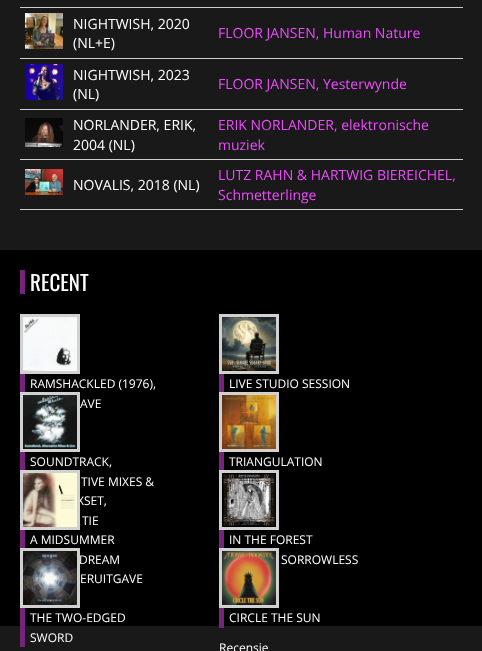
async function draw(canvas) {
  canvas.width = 482;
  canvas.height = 651;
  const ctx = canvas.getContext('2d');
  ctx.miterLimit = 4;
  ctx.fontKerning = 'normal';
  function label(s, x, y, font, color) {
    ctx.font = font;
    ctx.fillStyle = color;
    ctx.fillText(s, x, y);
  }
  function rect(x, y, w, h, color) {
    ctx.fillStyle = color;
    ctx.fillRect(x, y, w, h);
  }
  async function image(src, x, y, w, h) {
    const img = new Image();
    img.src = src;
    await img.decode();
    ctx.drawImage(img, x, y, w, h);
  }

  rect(0, 0, 482, 651, '#191919');
  rect(20, 7, 443, 1, '#ccc');
  rect(20, 58, 443, 1, '#ccc');
  await image('assets/img1.png', 25, 13, 38, 36);
  label('NIGHTWISH, 2020', 73, 29, '14px Open Sans', '#fff');
  label('(NL+E)', 73, 48, '14px Open Sans', '#fff');
  label('FLOOR JANSEN, Human Nature', 218, 38, '14px Open Sans', '#ef4bfe');
  rect(20, 109, 443, 1, '#ccc');
  await image('assets/img2.png', 25, 64, 38, 36);
  label('NIGHTWISH, 2023', 73, 80, '14px Open Sans', '#fff');
  label('(NL)', 73, 99, '14px Open Sans', '#fff');
  label('FLOOR JANSEN, Yesterwynde', 218, 89, '14px Open Sans', '#ef4bfe');
  rect(20, 159, 443, 1, '#ccc');
  await image('assets/img3.png', 25, 118, 38, 29);
  label('NORLANDER, ERIK,', 73, 130, '14px Open Sans', '#fff');
  label('2004 (NL)', 73, 150, '14px Open Sans', '#fff');
  label('ERIK NORLANDER, elektronische', 218, 130, '14px Open Sans', '#ef4bfe');
  label('muziek', 218, 150, '14px Open Sans', '#ef4bfe');
  rect(20, 209, 443, 1, '#ccc');
  await image('assets/img4.png', 25, 169, 38, 26);
  label('NOVALIS, 2018 (NL)', 73, 190, '14px Open Sans', '#fff');
  label('LUTZ RAHN & HARTWIG BIEREICHEL,', 218, 180, '14px Open Sans', '#ef4bfe');
  label('Schmetterlinge', 218, 200, '14px Open Sans', '#ef4bfe');
  rect(0, 250, 482, 376, '#000');
  rect(20, 270, 5, 24, '#74247b');
  label('RECENT', 30, 291, '21px Oswald', '#fff');
  ctx.strokeStyle = '#d1d1d1';
  ctx.lineWidth = 3;
  ctx.strokeRect(21.5, 315.5, 57, 57);
  await image('assets/img5.png', 23, 317, 54, 54);
  rect(20, 374, 5, 18, '#74247b');
  label('RAMSHACKLED (1976),', 30, 388, '12px Open Sans', '#fff');
  label('AVE', 80, 408, '12px Open Sans', '#fff');
  ctx.strokeRect(220.5, 315.5, 57, 57);
  await image('assets/img6.png', 222, 317, 54, 54);
  rect(219, 374, 5, 20, '#74247b');
  label('LIVE STUDIO SESSION', 229, 388, '12px Open Sans', '#fff');
  ctx.strokeRect(21.5, 393.5, 57, 57);
  await image('assets/img7.png', 23, 395, 54, 54);
  rect(20, 452, 5, 18, '#74247b');
  label('SOUNDTRACK,', 30, 466, '12px Open Sans', '#fff');
  label('TIVE MIXES &', 81, 486, '12px Open Sans', '#fff');
  label('XSET,', 77, 505, '12px Open Sans', '#fff');
  label('TIE', 82, 525, '12px Open Sans', '#fff');
  ctx.strokeRect(220.5, 393.5, 57, 57);
  await image('assets/img8.png', 222, 395, 54, 54);
  rect(219, 452, 5, 20, '#74247b');
  label('TRIANGULATION', 229, 466, '12px Open Sans', '#fff');
  ctx.strokeRect(21.5, 471.5, 57, 57);
  await image('assets/img9.png', 23, 473, 54, 54);
  rect(20, 530, 5, 18, '#74247b');
  label('A MIDSUMMER', 30, 544, '12px Open Sans', '#fff');
  label('DREAM', 79, 564, '12px Open Sans', '#fff');
  label('ERUITGAVE', 80, 583, '12px Open Sans', '#fff');
  ctx.strokeRect(220.5, 471.5, 57, 57);
  await image('assets/img10.png', 222, 474, 53, 52);
  rect(219, 530, 5, 18, '#74247b');
  label('IN THE FOREST', 229, 544, '12px Open Sans', '#fff');
  label('SORROWLESS', 281, 564, '12px Open Sans', '#fff');
  ctx.strokeRect(21.5, 549.5, 57, 57);
  await image('assets/img11.png', 23, 551, 54, 54);
  rect(20, 608, 5, 39, '#74247b');
  label('THE TWO-EDGED', 30, 622, '12px Open Sans', '#fff');
  label('SWORD', 30, 642, '12px Open Sans', '#fff');
  ctx.strokeRect(220.5, 549.5, 57, 57);
  await image('assets/img12.png', 222, 551, 54, 54);
  rect(219, 608, 5, 20, '#74247b');
  label('CIRCLE THE SUN', 229, 622, '12px Open Sans', '#fff');
  label('Recensie', 219, 652, '12px Open Sans', '#fff');
}

draw(document.querySelector('canvas'));
